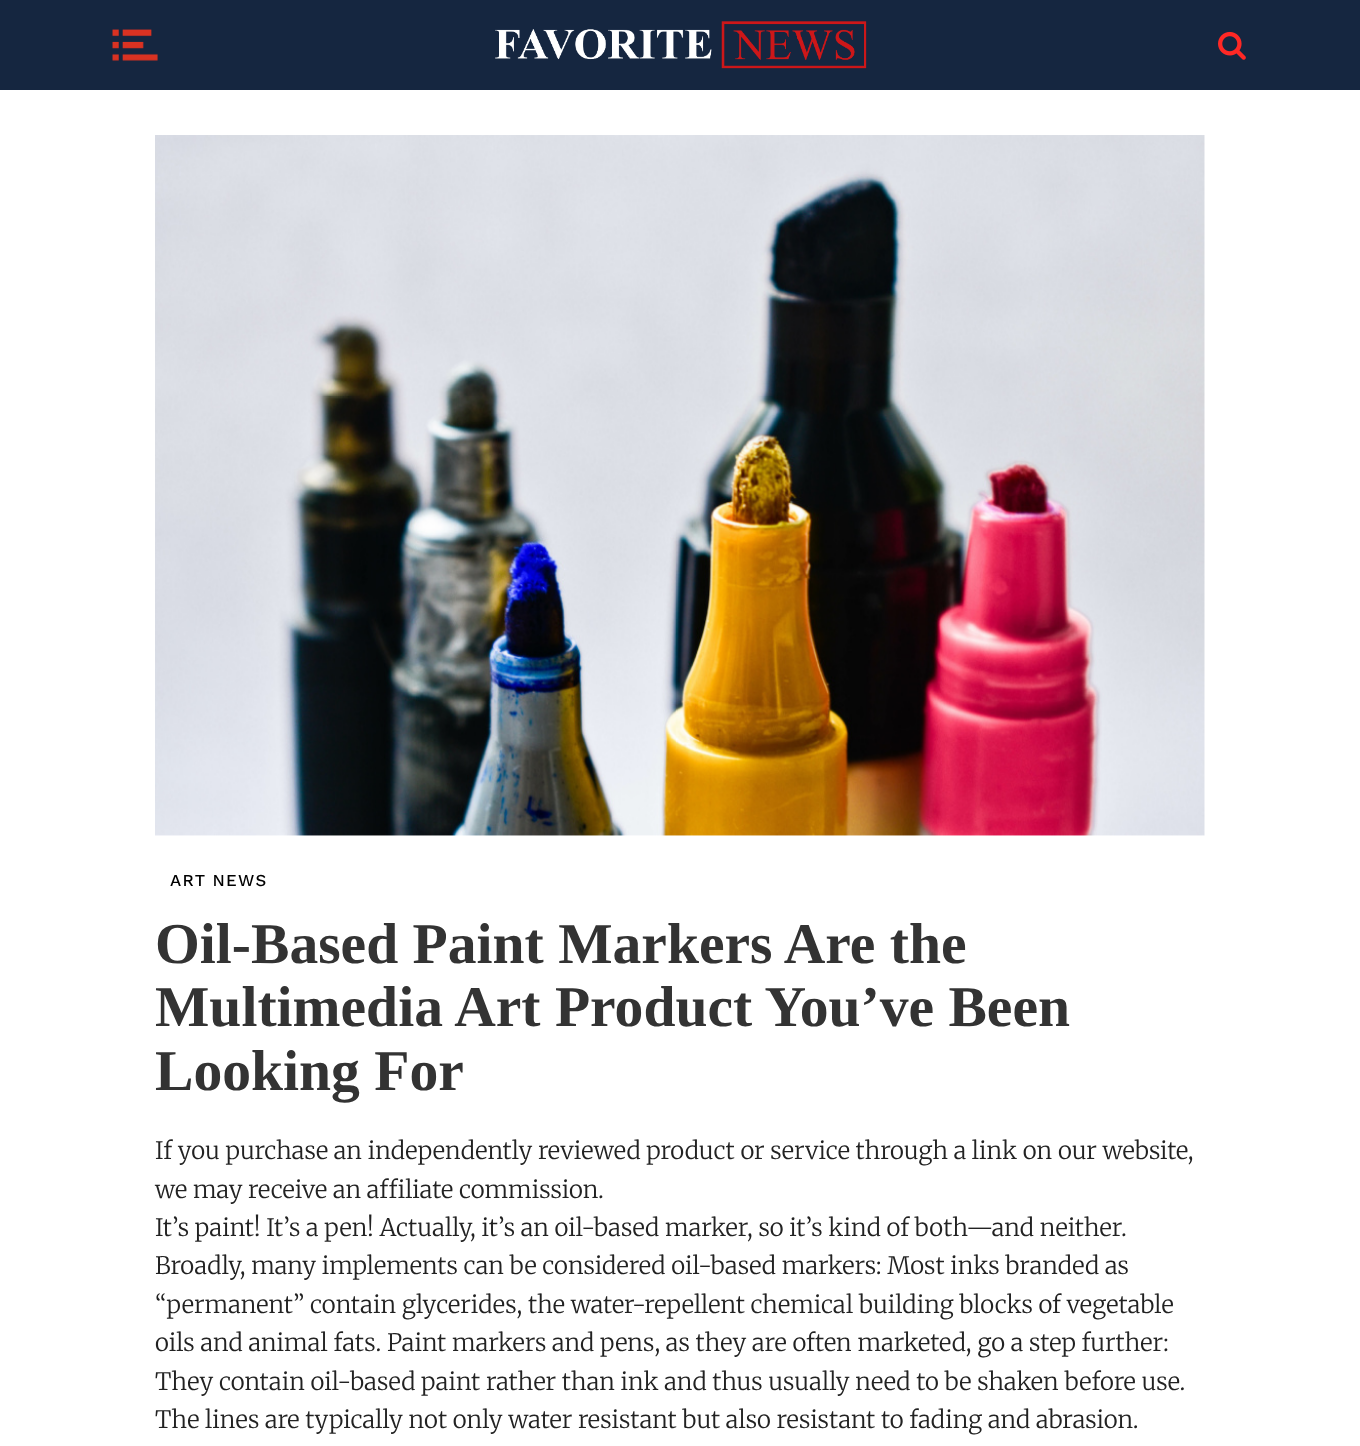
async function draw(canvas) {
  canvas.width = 1360;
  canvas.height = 1446;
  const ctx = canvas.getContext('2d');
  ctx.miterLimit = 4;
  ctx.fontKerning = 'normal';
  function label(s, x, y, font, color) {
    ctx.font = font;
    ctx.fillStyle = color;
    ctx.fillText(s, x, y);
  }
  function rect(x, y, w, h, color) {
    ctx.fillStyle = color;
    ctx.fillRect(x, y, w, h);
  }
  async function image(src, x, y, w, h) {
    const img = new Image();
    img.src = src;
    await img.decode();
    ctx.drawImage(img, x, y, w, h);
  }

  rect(0, 0, 1360, 1446, '#fff');
  rect(0, 0, 1360, 90, '#152640');
  await image('assets/img1.png', 112, 29, 46, 32);
  await image('assets/img2.png', 495, 21, 372, 48);
  await image('assets/img3.png', 1218, 31, 28, 29);
  await image('assets/img4.png', 155, 135, 1050, 701);
  ctx.letterSpacing = '1.25px';
  label('ART NEWS', 170, 886, '500 16.75px Work Sans', '#000');
  ctx.letterSpacing = '0px';
  label('Oil-Based Paint Markers Are the', 155, 963, 'bold 57.6px Liberation Serif', '#333');
  label('Multimedia Art Product You’ve Been', 155, 1026, 'bold 57.6px Liberation Serif', '#333');
  label('Looking For', 155, 1090, 'bold 57.6px Liberation Serif', '#333');
  label('If you purchase an independently reviewed product or service through a link on our website,', 155, 1159, '300 24px Merriweather', '#222');
  label('we may receive an affiliate commission.', 155, 1198, '300 24px Merriweather', '#222');
  label('It’s paint! It’s a pen! Actually, it’s an oil-based marker, so it’s kind of both—and neither.', 155, 1236, '300 24px Merriweather', '#222');
  label('Broadly, many implements can be considered oil-based markers: Most inks branded as', 155, 1274, '300 24px Merriweather', '#222');
  label('“permanent” contain glycerides, the water-repellent chemical building blocks of vegetable', 155, 1313, '300 24px Merriweather', '#222');
  label('oils and animal fats. Paint markers and pens, as they are often marketed, go a step further:', 155, 1351, '300 24px Merriweather', '#222');
  label('They contain oil-based paint rather than ink and thus usually need to be shaken before use.', 155, 1390, '300 24px Merriweather', '#222');
  label('The lines are typically not only water resistant but also resistant to fading and abrasion.', 155, 1428, '300 24px Merriweather', '#222');
}

draw(document.querySelector('canvas'));
